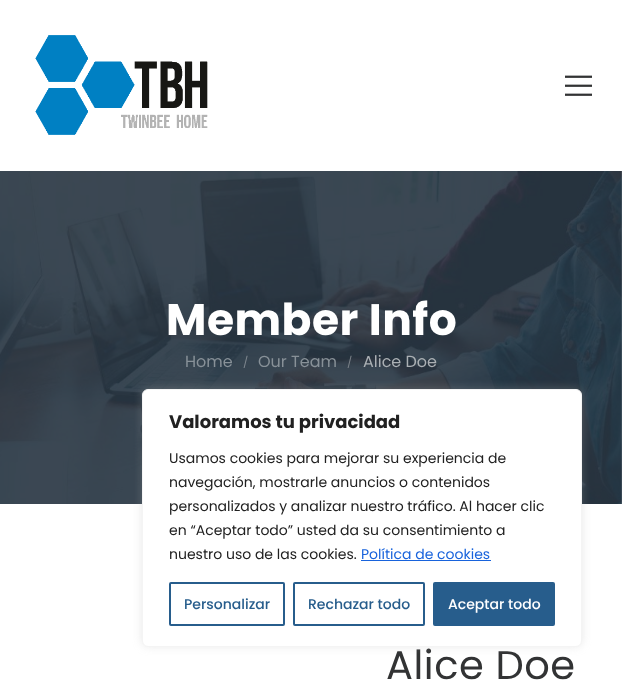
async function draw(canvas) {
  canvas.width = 622;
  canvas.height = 687;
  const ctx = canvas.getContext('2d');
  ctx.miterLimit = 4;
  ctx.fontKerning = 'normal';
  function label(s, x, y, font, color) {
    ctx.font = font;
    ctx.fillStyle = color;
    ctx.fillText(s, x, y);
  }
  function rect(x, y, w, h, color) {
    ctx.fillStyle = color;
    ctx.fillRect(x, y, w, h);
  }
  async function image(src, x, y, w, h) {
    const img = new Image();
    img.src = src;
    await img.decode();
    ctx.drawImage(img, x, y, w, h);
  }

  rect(0, 0, 622, 687, '#fff');
  await image('assets/img1.png', 35, 35, 173, 100);
  await image('assets/img2.png', 565, 75, 27, 21);
  await image('assets/img3.png', 0, 171, 622, 333);
  ctx.letterSpacing = '0.5px';
  label('Member Info', 166, 335, 'bold 44px Poppins', '#fff');
  ctx.letterSpacing = '0px';
  label('Home', 185, 367, '16px Poppins', '#889198');
  label('/', 243, 366, '11px Poppins', '#7e878f');
  label('Our Team', 258, 367, '16px Poppins', '#889198');
  label('/', 347, 366, '11px Poppins', '#7b8289');
  label('Alice Doe', 363, 367, '16px Poppins', '#abb0b4');
  ctx.letterSpacing = '0.5px';
  label('Alice Doe', 386, 679, '40px Poppins', '#323334');
  ctx.fillStyle = '#acabab4d';
  ctx.filter = 'blur(5px)';
  ctx.beginPath();
  ctx.roundRect(142, 388, 440, 258, 6);
  ctx.fill();
  ctx.filter = 'none';
  ctx.fillStyle = '#fff';
  ctx.beginPath();
  ctx.roundRect(142.5, 389.5, 439, 257, 5.5);
  ctx.fill();
  ctx.strokeStyle = '#f4f4f4';
  ctx.stroke();
  ctx.letterSpacing = '0px';
  label('Valoramos tu privacidad', 169, 428, 'bold 18px Poppins', '#212121');
  label('Usamos cookies para mejorar su experiencia de', 169, 463, '14px Poppins', '#212121');
  label('navegación, mostrarle anuncios o contenidos', 169, 487, '14px Poppins', '#212121');
  label('personalizados y analizar nuestro tráfico. Al hacer clic', 169, 511, '14px Poppins', '#212121');
  label('en “Aceptar todo” usted da su consentimiento a', 169, 535, '14px Poppins', '#212121');
  label('nuestro uso de las cookies.', 169, 559, '14px Poppins', '#212121');
  label('Política de cookies', 361, 559, '14px Poppins', '#1863dc');
  rect(361, 560, 130, 1, '#1863dc');
  ctx.beginPath();
  ctx.roundRect(170, 583, 114, 42, 1);
  ctx.strokeStyle = '#275d8c';
  ctx.lineWidth = 2;
  ctx.stroke();
  label('Personalizar', 184, 609, '500 14px Poppins', '#275d8c');
  ctx.beginPath();
  ctx.roundRect(294, 583, 130, 42, 1);
  ctx.stroke();
  label('Rechazar todo', 308, 609, '500 14px Poppins', '#275d8c');
  ctx.beginPath();
  ctx.roundRect(434, 583, 120, 42, 1);
  ctx.fill();
  ctx.stroke();
  label('Aceptar todo', 448, 609, '500 14px Poppins', '#fff');
}

draw(document.querySelector('canvas'));
